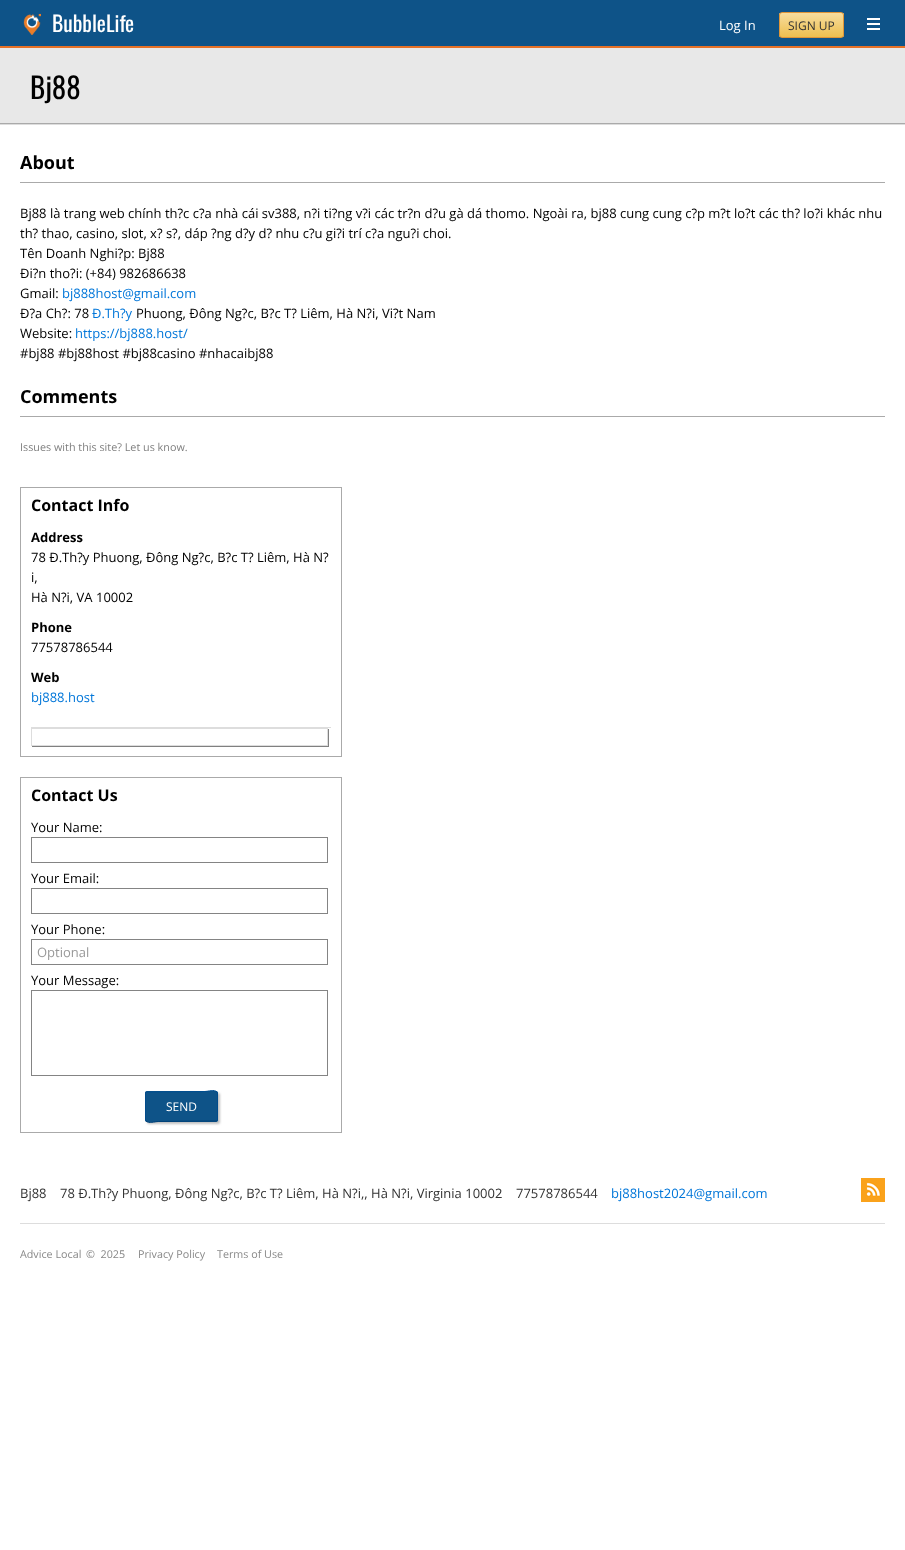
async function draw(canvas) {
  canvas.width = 905;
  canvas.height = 1550;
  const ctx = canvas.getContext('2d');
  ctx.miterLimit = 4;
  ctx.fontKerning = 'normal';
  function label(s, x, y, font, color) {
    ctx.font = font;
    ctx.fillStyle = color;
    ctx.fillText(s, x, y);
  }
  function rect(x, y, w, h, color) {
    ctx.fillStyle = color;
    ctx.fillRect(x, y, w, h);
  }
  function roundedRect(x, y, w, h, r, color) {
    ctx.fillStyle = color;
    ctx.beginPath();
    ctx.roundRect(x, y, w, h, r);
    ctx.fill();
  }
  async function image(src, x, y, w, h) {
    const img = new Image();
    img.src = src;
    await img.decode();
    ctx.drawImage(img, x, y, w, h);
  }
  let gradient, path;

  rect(0, 0, 905, 1550, '#fff');
  rect(0, 0, 905, 46, '#0e5388');
  rect(0, 46, 905, 2, '#e67127');
  await image('assets/img1.png', 23, 13, 18, 22);
  label('BubbleLife', 52, 32, '21.5px Oswald', '#fff');
  label('Log In', 719, 30, '13px Open Sans', '#fff');
  ctx.save();
  ctx.beginPath();
  ctx.roundRect(779, 12, 65, 26, 3);
  ctx.clip();
  gradient = ctx.createLinearGradient(812, 13, 812, 37);
  gradient.addColorStop(0, '#f7dd9e');
  gradient.addColorStop(1, '#edbf4f');
  ctx.fillStyle = gradient;
  ctx.fillRect(779, 13, 65, 24);
  ctx.restore();
  ctx.beginPath();
  ctx.roundRect(779.5, 12.5, 64, 25, 2.5);
  ctx.strokeStyle = '#df9538';
  ctx.stroke();
  label('SIGN UP', 788, 30, '12px Open Sans', '#333');
  await image('assets/img2.png', 867, 18, 13, 12);
  ctx.fillStyle = '#ddd';
  ctx.filter = 'blur(0.5px)';
  ctx.beginPath();
  ctx.rect(0, 49, 905, 76);
  ctx.fill();
  ctx.filter = 'none';
  rect(0, 48, 905, 75, '#e8e8e8');
  rect(0, 123, 905, 1, '#aaa');
  label('Bj88', 30, 99, '29px Oswald', '#000');
  rect(20, 182, 865, 1, '#aaa');
  label('About', 20, 169, 'bold 18px Open Sans', '#000');
  label('Bj88 là trang web chính th?c c?a nhà cái sv388, n?i ti?ng v?i các tr?n d?u gà dá thomo. Ngoài ra, bj88 cung cung c?p m?t lo?t các th? lo?i khác nhu', 20, 218, '13px Open Sans', '#000');
  label('th? thao, casino, slot, x? s?, dáp ?ng d?y d? nhu c?u gi?i trí c?a ngu?i choi.', 20, 238, '13px Open Sans', '#000');
  label('Tên Doanh Nghi?p: Bj88', 20, 258, '13px Open Sans', '#000');
  label('Ði?n tho?i: (+84) 982686638', 20, 278, '13px Open Sans', '#000');
  label('Gmail:', 20, 298, '13px Open Sans', '#000');
  label('bj888host@gmail.com', 62, 298, '13px Open Sans', '#0176d9');
  label('Ð?a Ch?: 78', 20, 318, '13px Open Sans', '#000');
  label('Ð.Th?y', 92, 318, '13px Open Sans', '#0176d9');
  label('Phuong, Ðông Ng?c, B?c T? Liêm, Hà N?i, Vi?t Nam', 136, 318, '13px Open Sans', '#000');
  label('Website:', 20, 338, '13px Open Sans', '#000');
  label('https://bj888.host/', 75, 338, '13px Open Sans', '#0176d9');
  label('#bj88 #bj88host #bj88casino #nhacaibj88', 20, 358, '13px Open Sans', '#000');
  rect(20, 416, 865, 1, '#aaa');
  label('Comments', 20, 403, 'bold 18px Open Sans', '#000');
  label('Issues with this site? Let us know.', 20, 451, '10.8px Open Sans', '#808080');
  ctx.strokeStyle = '#aaa';
  ctx.strokeRect(20.5, 487.5, 321, 269);
  label('Contact Info', 31, 511, 'bold 16px Open Sans', '#000');
  label('Address', 31, 542, 'bold 13px Open Sans', '#000');
  label('78 Ð.Th?y Phuong, Ðông Ng?c, B?c T? Liêm, Hà N?', 31, 562, '13px Open Sans', '#000');
  label('i,', 31, 582, '13px Open Sans', '#000');
  label('Hà N?i, VA 10002', 31, 602, '13px Open Sans', '#000');
  label('Phone', 31, 632, 'bold 13px Open Sans', '#000');
  label('77578786544', 31, 652, '13px Open Sans', '#000');
  label('Web', 31, 682, 'bold 13px Open Sans', '#000');
  label('bj888.host', 31, 702, '13px Open Sans', '#0176d9');
  rect(31, 727, 300, 1, '#ddd');
  ctx.save();
  path = new Path2D('M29 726H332V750H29ZM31 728H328V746H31Z');
  ctx.clip(path, 'evenodd');
  ctx.fillStyle = '#808080';
  ctx.filter = 'blur(0.5px)';
  ctx.beginPath();
  ctx.rect(32, 729, 297, 18);
  ctx.fill();
  ctx.filter = 'none';
  ctx.restore();
  ctx.strokeStyle = '#ddd';
  ctx.strokeRect(31.5, 728.5, 296, 17);
  ctx.strokeStyle = '#aaa';
  ctx.strokeRect(20.5, 777.5, 321, 355);
  label('Contact Us', 31, 801, 'bold 16px Open Sans', '#000');
  label('Your Name:', 31, 832, '13px Open Sans', '#000');
  ctx.strokeStyle = '#848484';
  ctx.strokeRect(31.5, 837.5, 296, 25);
  label('Your Email:', 31, 883, '13px Open Sans', '#000');
  ctx.strokeRect(31.5, 888.5, 296, 25);
  label('Your Phone:', 31, 934, '13px Open Sans', '#000');
  ctx.strokeRect(31.5, 939.5, 296, 25);
  label('Optional', 37, 957, '13px Open Sans', '#999');
  label('Your Message:', 31, 985, '13px Open Sans', '#000');
  ctx.strokeRect(31.5, 990.5, 296, 85);
  ctx.fillStyle = '#c0c0c0';
  ctx.filter = 'blur(1px)';
  ctx.beginPath();
  ctx.roundRect(147, 1093, 73, 31, 2);
  ctx.fill();
  ctx.filter = 'none';
  roundedRect(145, 1091, 73, 31, 2, '#0e5388');
  path = new Path2D('M146 1092L204.5 1091.5C208.5 1091.5 214 1089 217 1092');
  ctx.strokeStyle = '#004e91';
  ctx.stroke(path);
  path = new Path2D('M217 1092L217.5 1093V1120L217 1121');
  ctx.strokeStyle = '#014b8b';
  ctx.stroke(path);
  path = new Path2D('M217 1121L158.5 1121.5C154.5 1121.5 149 1124 146 1121');
  ctx.strokeStyle = '#004178';
  ctx.stroke(path);
  path = new Path2D('M146 1121L145.5 1120V1093L146 1092');
  ctx.strokeStyle = '#014b8b';
  ctx.stroke(path);
  label('SEND', 166, 1111, '12px Open Sans', '#fff');
  label('Bj88', 20, 1198, '13px Open Sans', '#333');
  label('78 Ð.Th?y Phuong, Ðông Ng?c, B?c T? Liêm, Hà N?i,, Hà N?i, Virginia 10002', 60, 1198, '13px Open Sans', '#333');
  label('77578786544', 516, 1198, '13px Open Sans', '#333');
  label('bj88host2024@gmail.com', 611, 1198, '13px Open Sans', '#0176d9');
  await image('assets/img3.png', 861, 1178, 24, 24);
  rect(20, 1223, 865, 1, '#ddd');
  label('Advice Local', 20, 1258, '10.75px Open Sans', '#888');
  label('©  2025', 86, 1258, '10.75px Open Sans', '#888');
  label('Privacy Policy', 138, 1258, '10.75px Open Sans', '#888');
  label('Terms of Use', 217, 1258, '10.75px Open Sans', '#888');
}

draw(document.querySelector('canvas'));
